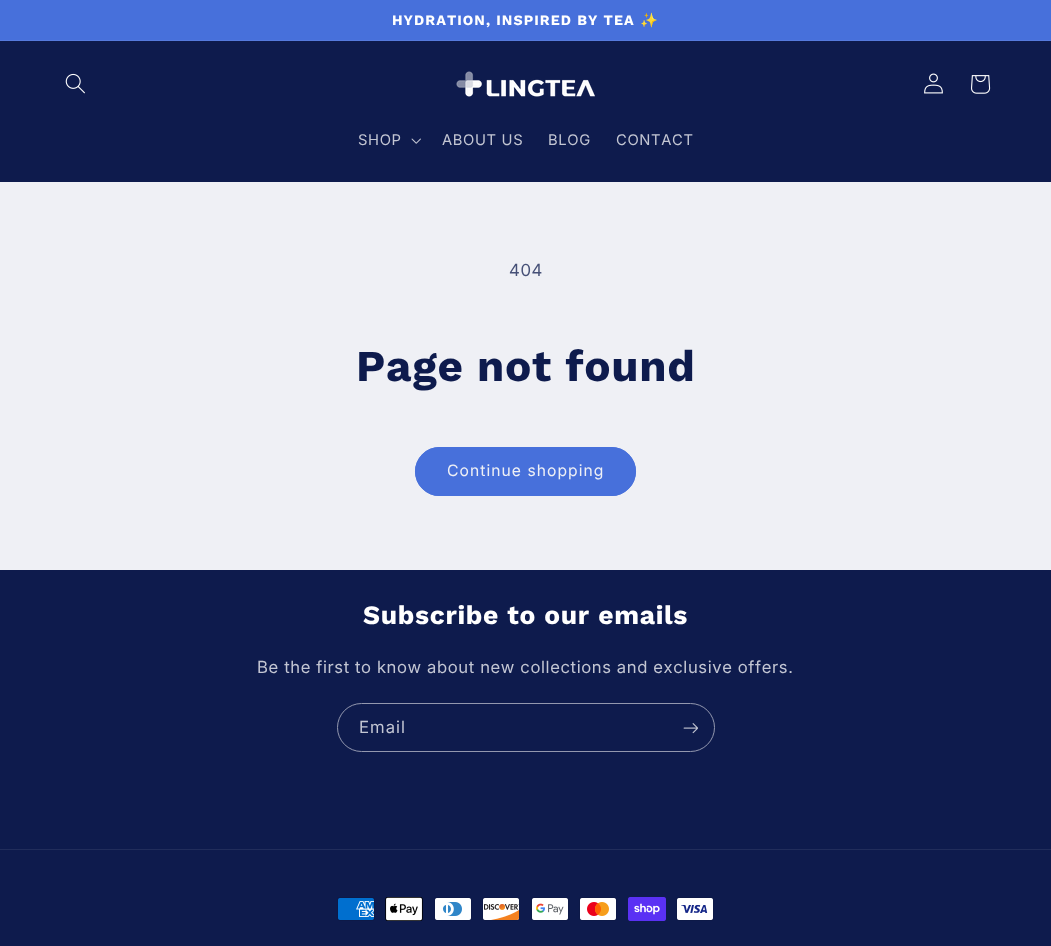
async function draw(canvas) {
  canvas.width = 1051;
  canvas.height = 946;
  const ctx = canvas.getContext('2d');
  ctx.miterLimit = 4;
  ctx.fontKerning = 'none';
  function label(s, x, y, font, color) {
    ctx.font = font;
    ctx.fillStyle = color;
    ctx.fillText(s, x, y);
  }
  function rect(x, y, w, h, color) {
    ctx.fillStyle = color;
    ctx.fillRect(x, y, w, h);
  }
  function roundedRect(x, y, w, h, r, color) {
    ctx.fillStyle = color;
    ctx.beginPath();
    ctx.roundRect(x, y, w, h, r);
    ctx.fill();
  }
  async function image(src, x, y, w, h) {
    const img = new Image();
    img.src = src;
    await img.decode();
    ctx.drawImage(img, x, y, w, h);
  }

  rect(0, 0, 1051, 946, '#eff0f5');
  rect(0, 0, 1051, 40, '#4770db');
  rect(0, 40, 1051, 1, '#567bde');
  ctx.letterSpacing = '1.05px';
  label('HYDRATION, INSPIRED BY TEA', 392, 25, 'bold 14.25px Work Sans', '#fff');
  label('✨', 640, 25, 'bold 14.25px Noto Color Emoji', '#fff');
  rect(0, 41, 1051, 141, '#0e1b4d');
  await image('assets/img1.png', 65, 73, 20, 21);
  await image('assets/img2.png', 456, 71, 139, 26);
  await image('assets/img3.png', 924, 73, 19, 21);
  await image('assets/img4.png', 971, 75, 20, 19);
  ctx.letterSpacing = '0.63px';
  label('SHOP', 358, 145, '14.75px "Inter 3"', '#c3c6d3');
  await image('assets/img5.png', 411, 138, 10, 6);
  label('ABOUT US', 442, 145, '14.75px "Inter 3"', '#c3c6d3');
  label('BLOG', 548, 145, '14.75px "Inter 3"', '#c3c6d3');
  label('CONTACT', 616, 145, '14.75px "Inter 3"', '#c3c6d3');
  label('404', 509, 276, '16.8px Inter', '#465077');
  ctx.letterSpacing = '0.7px';
  label('Page not found', 356, 381, 'bold 44px Work Sans', '#0e1b4d');
  roundedRect(415, 447, 221, 49, 24.5, '#4770db');
  ctx.beginPath();
  ctx.roundRect(415.5, 447.5, 220, 48, 24);
  ctx.strokeStyle = '#4770db';
  ctx.stroke();
  ctx.letterSpacing = '1.05px';
  label('Continue shopping', 447, 476, '15.75px "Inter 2"', '#eff0f5');
  rect(0, 570, 1051, 376, '#0e1b4d');
  rect(0, 849, 1051, 1, '#212d5b');
  await image('assets/img6.png', 337, 897, 38, 24);
  await image('assets/img7.png', 385, 897, 38, 24);
  await image('assets/img8.png', 434, 897, 38, 24);
  await image('assets/img9.png', 482, 897, 38, 24);
  await image('assets/img10.png', 531, 897, 38, 24);
  await image('assets/img11.png', 579, 897, 38, 24);
  await image('assets/img12.png', 628, 897, 38, 24);
  await image('assets/img13.png', 676, 897, 38, 24);
  ctx.letterSpacing = '0.7px';
  label('Subscribe to our emails', 363, 624, 'bold 26.4px Work Sans', '#fff');
  ctx.letterSpacing = '0.63px';
  label('Be the first to know about new collections and exclusive offers.', 257, 673, '16.8px Inter', '#c3c6d3');
  ctx.beginPath();
  ctx.roundRect(337.5, 703.5, 377, 48, 24);
  ctx.strokeStyle = '#9398af';
  ctx.stroke();
  ctx.letterSpacing = '1.05px';
  label('Email', 359, 733, '16.8px Inter', '#c3c6d3');
  await image('assets/img14.png', 683, 723, 15, 11);
}

draw(document.querySelector('canvas'));
